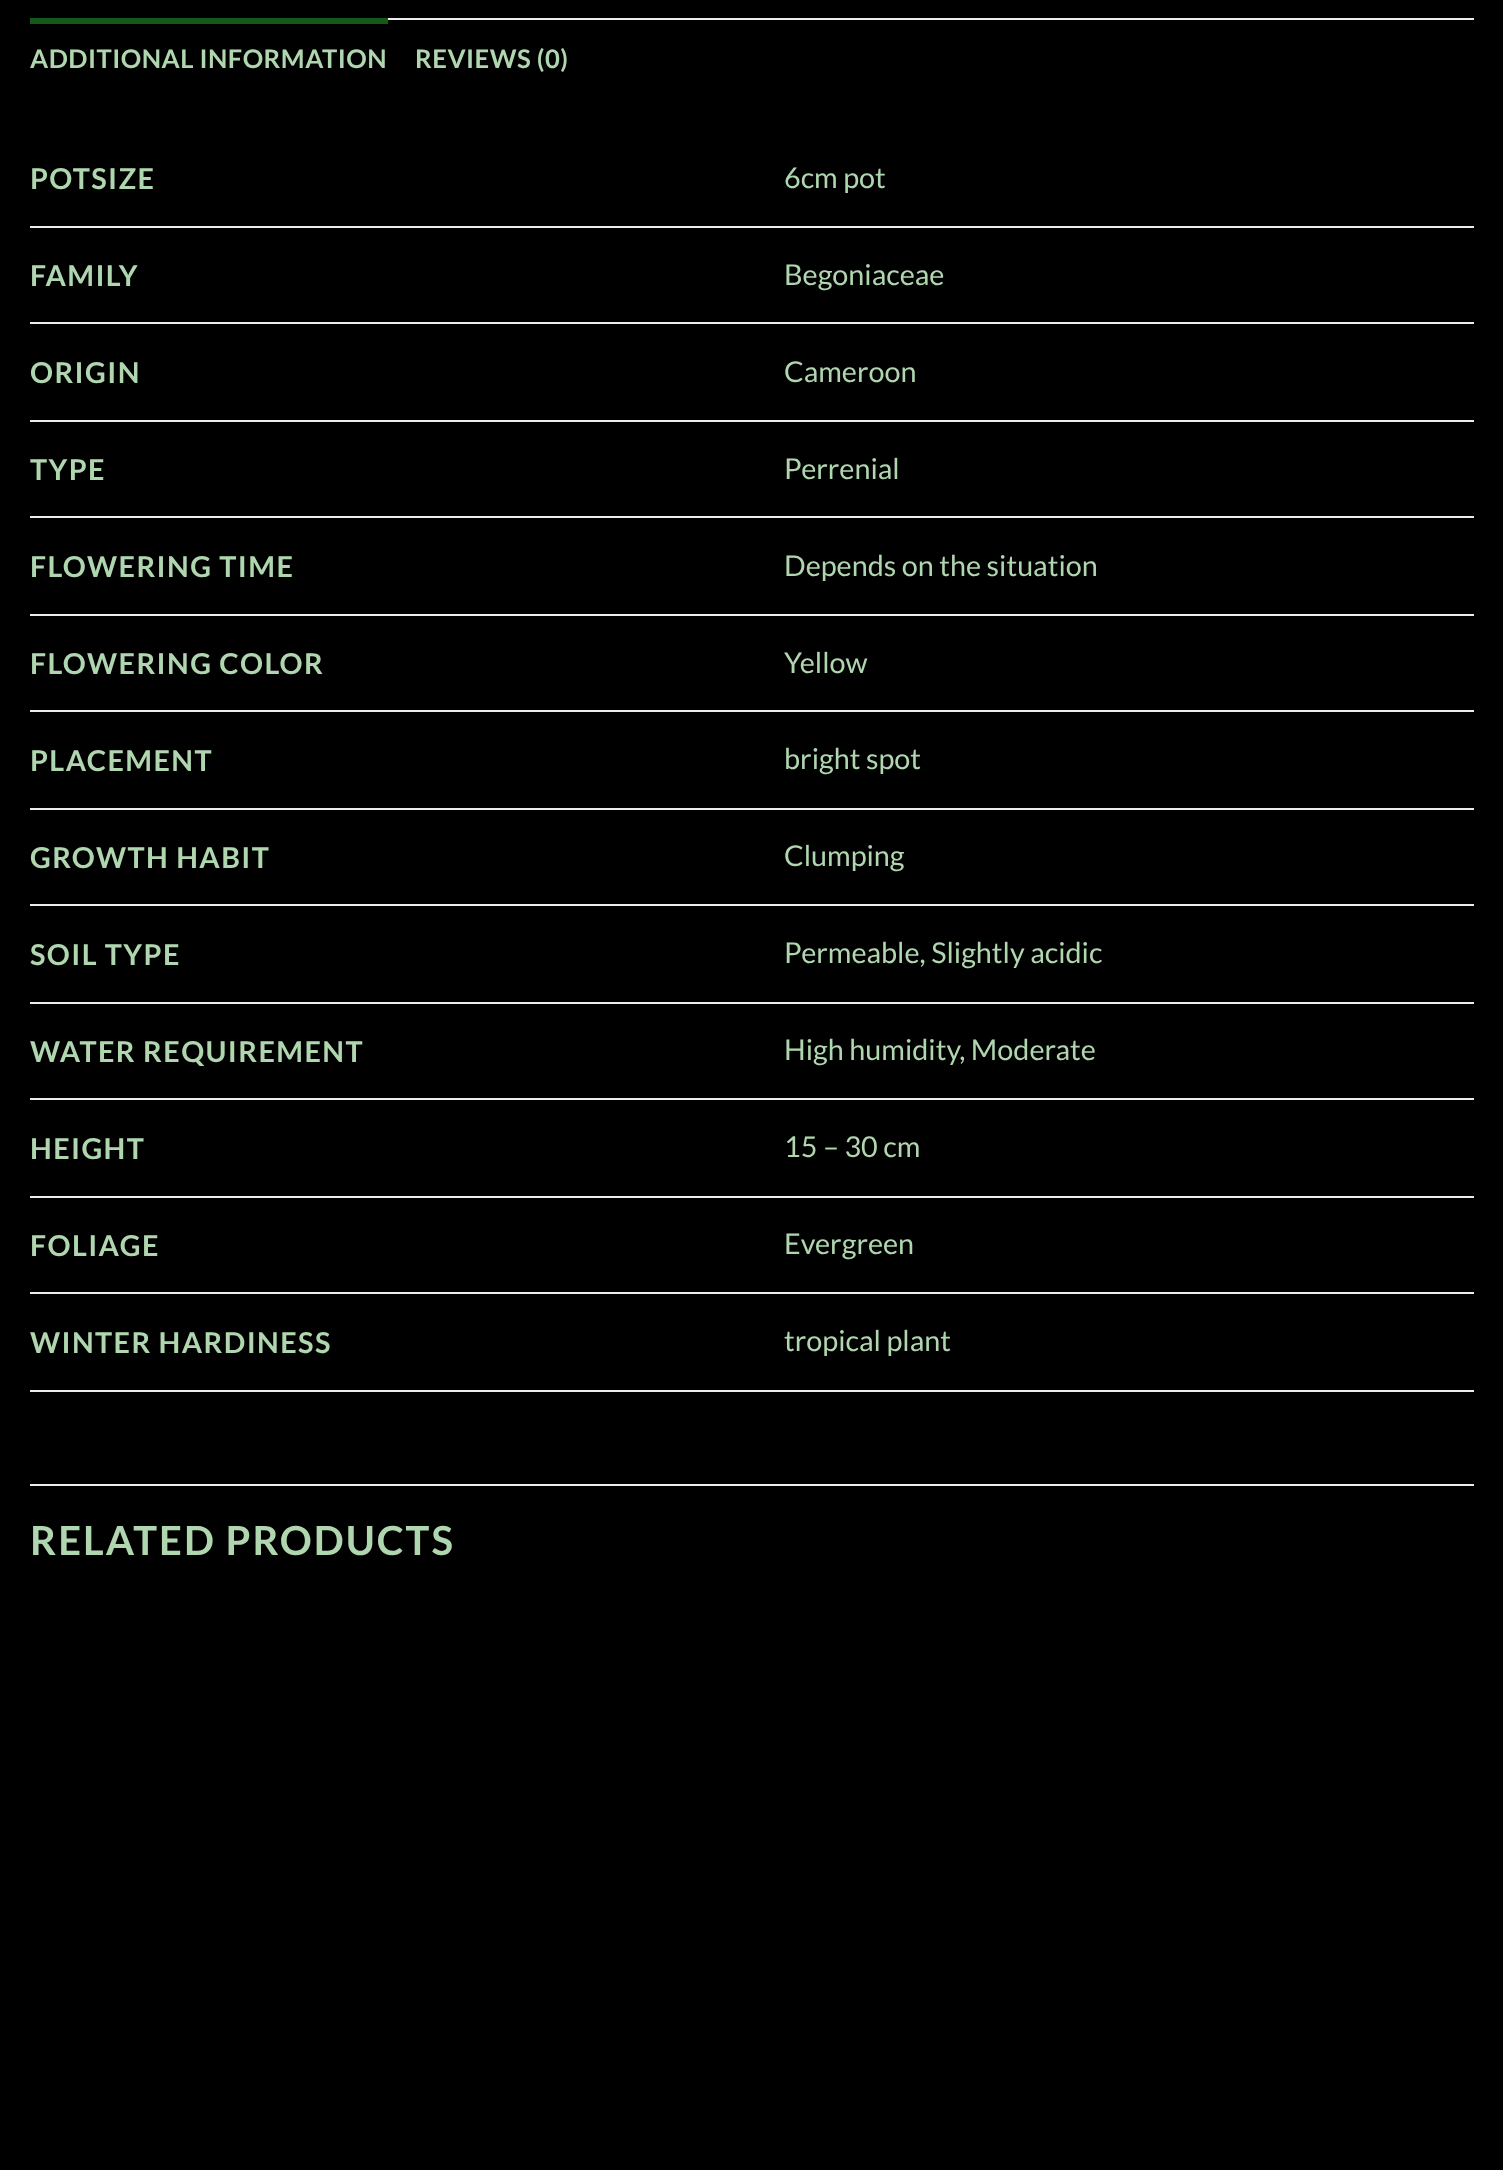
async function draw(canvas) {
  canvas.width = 1503;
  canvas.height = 2170;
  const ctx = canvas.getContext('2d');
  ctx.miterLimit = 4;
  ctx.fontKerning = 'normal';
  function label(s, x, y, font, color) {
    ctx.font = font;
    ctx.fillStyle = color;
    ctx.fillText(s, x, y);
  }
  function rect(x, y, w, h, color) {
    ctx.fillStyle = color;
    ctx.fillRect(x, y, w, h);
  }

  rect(0, 0, 1503, 2170, '#000');
  rect(388, 18, 1086, 2, '#ececec');
  rect(30, 18, 358, 6, '#165916');
  ctx.letterSpacing = '0.5px';
  label('ADDITIONAL INFORMATION', 30, 68, 'bold 25.6px Lato', '#b0d6b0');
  label('REVIEWS (0)', 415, 68, 'bold 25.6px Lato', '#b0d6b0');
  rect(30, 226, 1444, 2, '#ececec');
  ctx.letterSpacing = '1.4px';
  label('POTSIZE', 30, 189, 'bold 28.75px Lato', '#b0d6b0');
  ctx.letterSpacing = '0px';
  label('6cm pot', 784, 188, '28.75px Lato', '#b0d6b0');
  rect(30, 322, 1444, 2, '#ececec');
  ctx.letterSpacing = '1.4px';
  label('FAMILY', 30, 286, 'bold 28.75px Lato', '#b0d6b0');
  ctx.letterSpacing = '0px';
  label('Begoniaceae', 784, 285, '28.75px Lato', '#b0d6b0');
  rect(30, 420, 1444, 2, '#ececec');
  ctx.letterSpacing = '1.4px';
  label('ORIGIN', 30, 383, 'bold 28.75px Lato', '#b0d6b0');
  ctx.letterSpacing = '0px';
  label('Cameroon', 784, 382, '28.75px Lato', '#b0d6b0');
  rect(30, 516, 1444, 2, '#ececec');
  ctx.letterSpacing = '1.4px';
  label('TYPE', 30, 480, 'bold 28.75px Lato', '#b0d6b0');
  ctx.letterSpacing = '0px';
  label('Perrenial', 784, 479, '28.75px Lato', '#b0d6b0');
  rect(30, 614, 1444, 2, '#ececec');
  ctx.letterSpacing = '1.4px';
  label('FLOWERING TIME', 30, 577, 'bold 28.75px Lato', '#b0d6b0');
  ctx.letterSpacing = '0px';
  label('Depends on the situation', 784, 576, '28.75px Lato', '#b0d6b0');
  rect(30, 710, 1444, 2, '#ececec');
  ctx.letterSpacing = '1.4px';
  label('FLOWERING COLOR', 30, 674, 'bold 28.75px Lato', '#b0d6b0');
  ctx.letterSpacing = '0px';
  label('Yellow', 784, 673, '28.75px Lato', '#b0d6b0');
  rect(30, 808, 1444, 2, '#ececec');
  ctx.letterSpacing = '1.4px';
  label('PLACEMENT', 30, 771, 'bold 28.75px Lato', '#b0d6b0');
  ctx.letterSpacing = '0px';
  label('bright spot', 784, 769, '28.75px Lato', '#b0d6b0');
  rect(30, 904, 1444, 2, '#ececec');
  ctx.letterSpacing = '1.4px';
  label('GROWTH HABIT', 30, 868, 'bold 28.75px Lato', '#b0d6b0');
  ctx.letterSpacing = '0px';
  label('Clumping', 784, 866, '28.75px Lato', '#b0d6b0');
  rect(30, 1002, 1444, 2, '#ececec');
  ctx.letterSpacing = '1.4px';
  label('SOIL TYPE', 30, 965, 'bold 28.75px Lato', '#b0d6b0');
  ctx.letterSpacing = '0px';
  label('Permeable, Slightly acidic', 784, 963, '28.75px Lato', '#b0d6b0');
  rect(30, 1098, 1444, 2, '#ececec');
  ctx.letterSpacing = '1.4px';
  label('WATER REQUIREMENT', 30, 1062, 'bold 28.75px Lato', '#b0d6b0');
  ctx.letterSpacing = '0px';
  label('High humidity, Moderate', 784, 1060, '28.75px Lato', '#b0d6b0');
  rect(30, 1196, 1444, 2, '#ececec');
  ctx.letterSpacing = '1.4px';
  label('HEIGHT', 30, 1159, 'bold 28.75px Lato', '#b0d6b0');
  ctx.letterSpacing = '0px';
  label('15 – 30 cm', 784, 1157, '28.75px Lato', '#b0d6b0');
  rect(30, 1292, 1444, 2, '#ececec');
  ctx.letterSpacing = '1.4px';
  label('FOLIAGE', 30, 1256, 'bold 28.75px Lato', '#b0d6b0');
  ctx.letterSpacing = '0px';
  label('Evergreen', 784, 1254, '28.75px Lato', '#b0d6b0');
  rect(30, 1390, 1444, 2, '#ececec');
  ctx.letterSpacing = '1.4px';
  label('WINTER HARDINESS', 30, 1353, 'bold 28.75px Lato', '#b0d6b0');
  ctx.letterSpacing = '0px';
  label('tropical plant', 784, 1351, '28.75px Lato', '#b0d6b0');
  rect(30, 1484, 1444, 2, '#ececec');
  ctx.letterSpacing = '2px';
  label('RELATED PRODUCTS', 30, 1555, 'bold 40px Lato', '#b0d6b0');
}

draw(document.querySelector('canvas'));
